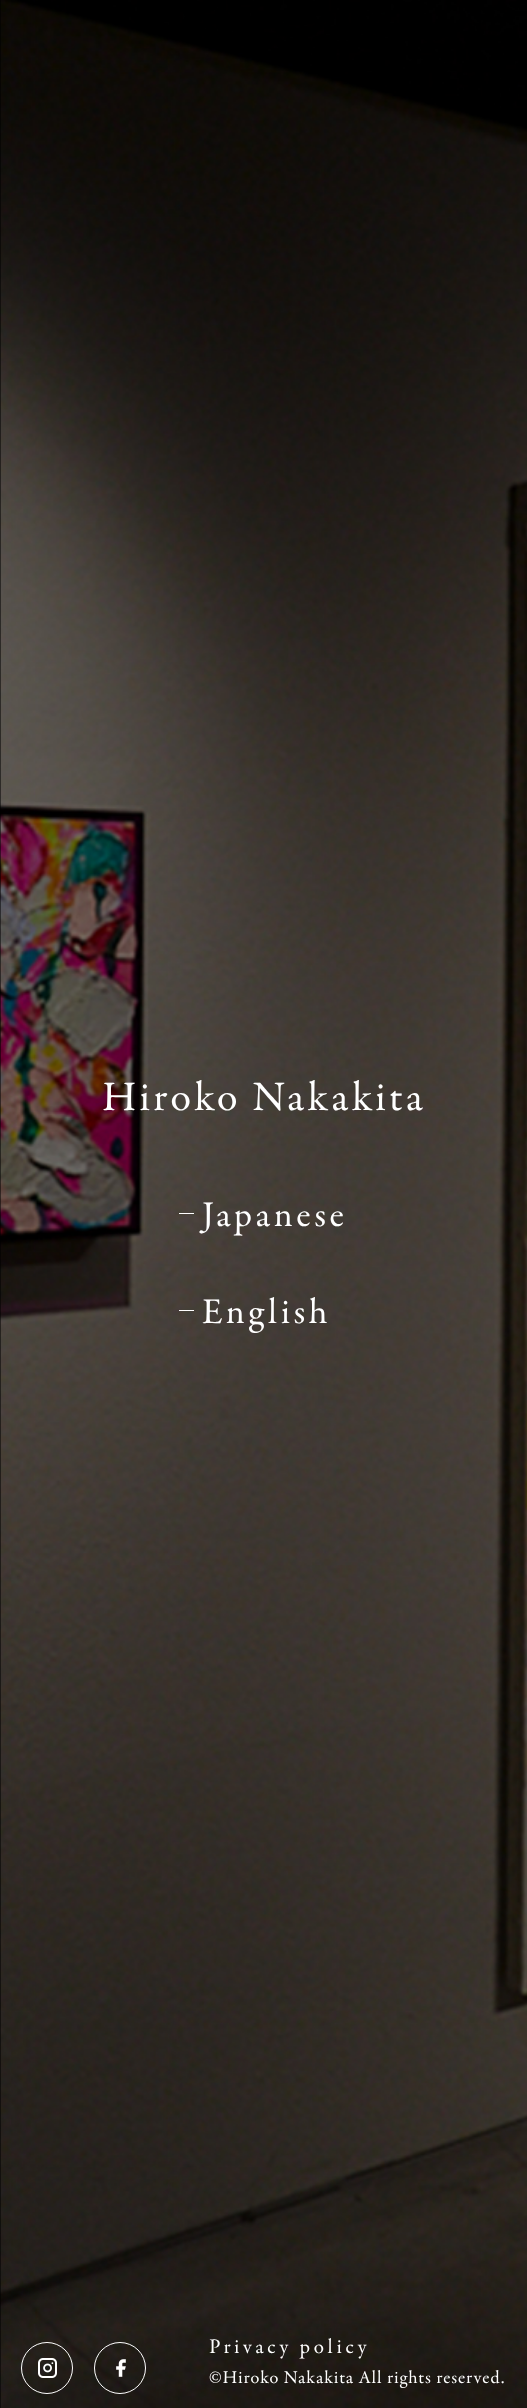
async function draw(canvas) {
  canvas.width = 527;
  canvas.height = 2408;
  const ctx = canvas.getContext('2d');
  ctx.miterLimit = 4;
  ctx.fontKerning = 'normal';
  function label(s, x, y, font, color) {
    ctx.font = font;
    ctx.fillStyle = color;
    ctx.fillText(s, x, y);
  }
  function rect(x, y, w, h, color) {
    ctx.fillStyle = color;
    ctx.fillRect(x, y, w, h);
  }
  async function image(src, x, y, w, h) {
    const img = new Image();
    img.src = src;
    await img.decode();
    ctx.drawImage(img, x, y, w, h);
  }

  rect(0, 0, 527, 2408, '#000');
  await image('assets/img1.png', 0, 0, 527, 2408);
  ctx.letterSpacing = '3.4px';
  label('Hiroko Nakakita', 102, 1110, '42.25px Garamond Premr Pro', '#fff');
  rect(179, 1213, 15, 1, '#fff');
  ctx.letterSpacing = '3.6px';
  label('Japanese', 202, 1226, '36.5px Garamond Premr Pro', '#fff');
  rect(179, 1310, 15, 1, '#fff');
  label('English', 202, 1323, '36.5px Garamond Premr Pro', '#fff');
  ctx.beginPath();
  ctx.arc(47, 2368, 25.5, 0, 2 * Math.PI);
  ctx.strokeStyle = '#fff';
  ctx.stroke();
  await image('assets/img2.png', 38, 2358, 19, 20);
  ctx.beginPath();
  ctx.arc(120, 2368, 25.5, 0, 2 * Math.PI);
  ctx.stroke();
  await image('assets/img3.png', 116, 2359, 10, 18);
  label('Privacy policy', 209, 2353, '21px Garamond Premr Pro', '#fff');
  ctx.letterSpacing = '0.9px';
  label('©Hiroko Nakakita All rights reserved.', 209, 2383, '18.25px Garamond Premr Pro', '#fff');
}

draw(document.querySelector('canvas'));
